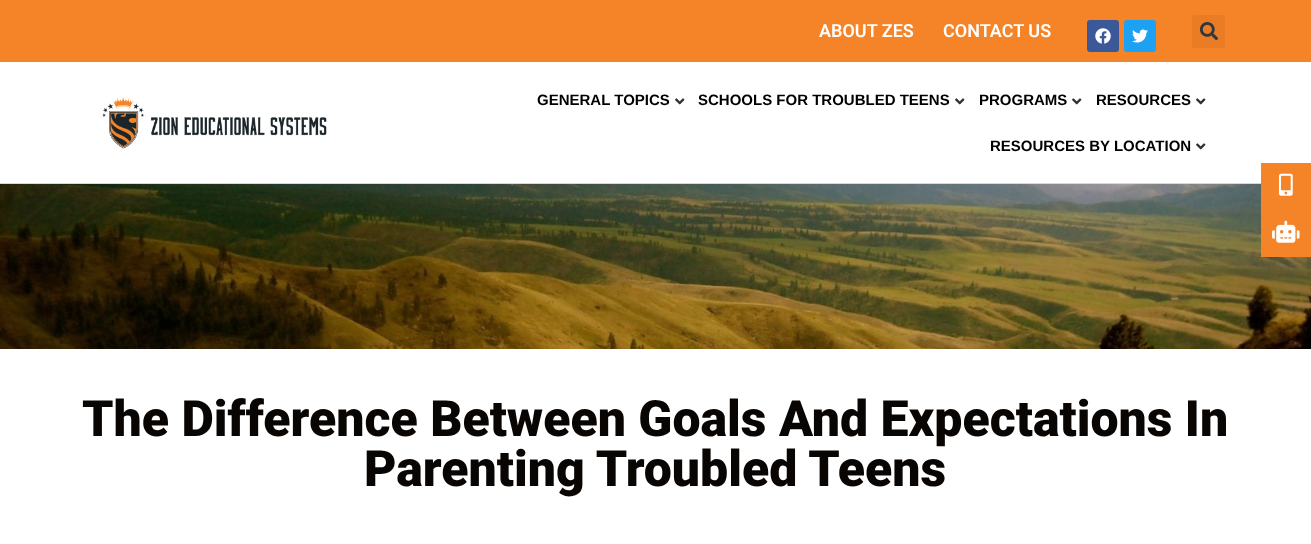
async function draw(canvas) {
  canvas.width = 1311;
  canvas.height = 544;
  const ctx = canvas.getContext('2d');
  ctx.miterLimit = 4;
  ctx.fontKerning = 'normal';
  function label(s, x, y, font, color) {
    ctx.font = font;
    ctx.fillStyle = color;
    ctx.fillText(s, x, y);
  }
  function rect(x, y, w, h, color) {
    ctx.fillStyle = color;
    ctx.fillRect(x, y, w, h);
  }
  function roundedRect(x, y, w, h, r, color) {
    ctx.fillStyle = color;
    ctx.beginPath();
    ctx.roundRect(x, y, w, h, r);
    ctx.fill();
  }
  async function image(src, x, y, w, h) {
    const img = new Image();
    img.src = src;
    await img.decode();
    ctx.drawImage(img, x, y, w, h);
  }

  rect(0, 0, 1311, 544, '#fff');
  rect(0, 0, 1311, 62, '#f58327');
  label('ABOUT ZES', 819, 37, '600 18px Roboto', '#fff');
  label('CONTACT US', 943, 37, '600 18px Roboto', '#fff');
  roundedRect(1087, 20, 32, 32, 3, '#3b5998');
  await image('assets/img1.png', 1095, 28, 16, 16);
  roundedRect(1124, 20, 32, 32, 3, '#1da1f2');
  await image('assets/img2.png', 1132, 29, 16, 14);
  roundedRect(1192, 15, 33, 33, 3, '#e97c25');
  await image('assets/img3.png', 1199, 22, 19, 19);
  rect(0, 183, 1261, 1, '#d8d8d8');
  await image('assets/img4.png', 102, 96, 225, 53);
  label('GENERAL TOPICS', 537, 105, 'bold 15px Liberation Sans', '#000');
  await image('assets/img5.png', 675, 98, 10, 7);
  label('SCHOOLS FOR TROUBLED TEENS', 698, 105, 'bold 15px Liberation Sans', '#000');
  await image('assets/img5.png', 955, 98, 10, 7);
  label('PROGRAMS', 979, 105, 'bold 15px Liberation Sans', '#000');
  await image('assets/img5.png', 1072, 98, 10, 7);
  label('RESOURCES', 1096, 105, 'bold 15px Liberation Sans', '#000');
  await image('assets/img5.png', 1196, 98, 10, 7);
  label('RESOURCES BY LOCATION', 990, 151, 'bold 15px Liberation Sans', '#000');
  await image('assets/img5.png', 1196, 143, 10, 7);
  await image('assets/img6.png', 0, 184, 1311, 165);
  label('The Difference Between Goals And Expectations In', 82, 436, '900 50px Roboto', '#090502');
  label('Parenting Troubled Teens', 364, 486, '900 50px Roboto', '#090502');
  rect(1261, 163, 50, 94, '#f58327');
  await image('assets/img7.png', 1279, 173, 14, 23);
  await image('assets/img8.png', 1272, 220, 28, 23);
}

draw(document.querySelector('canvas'));
